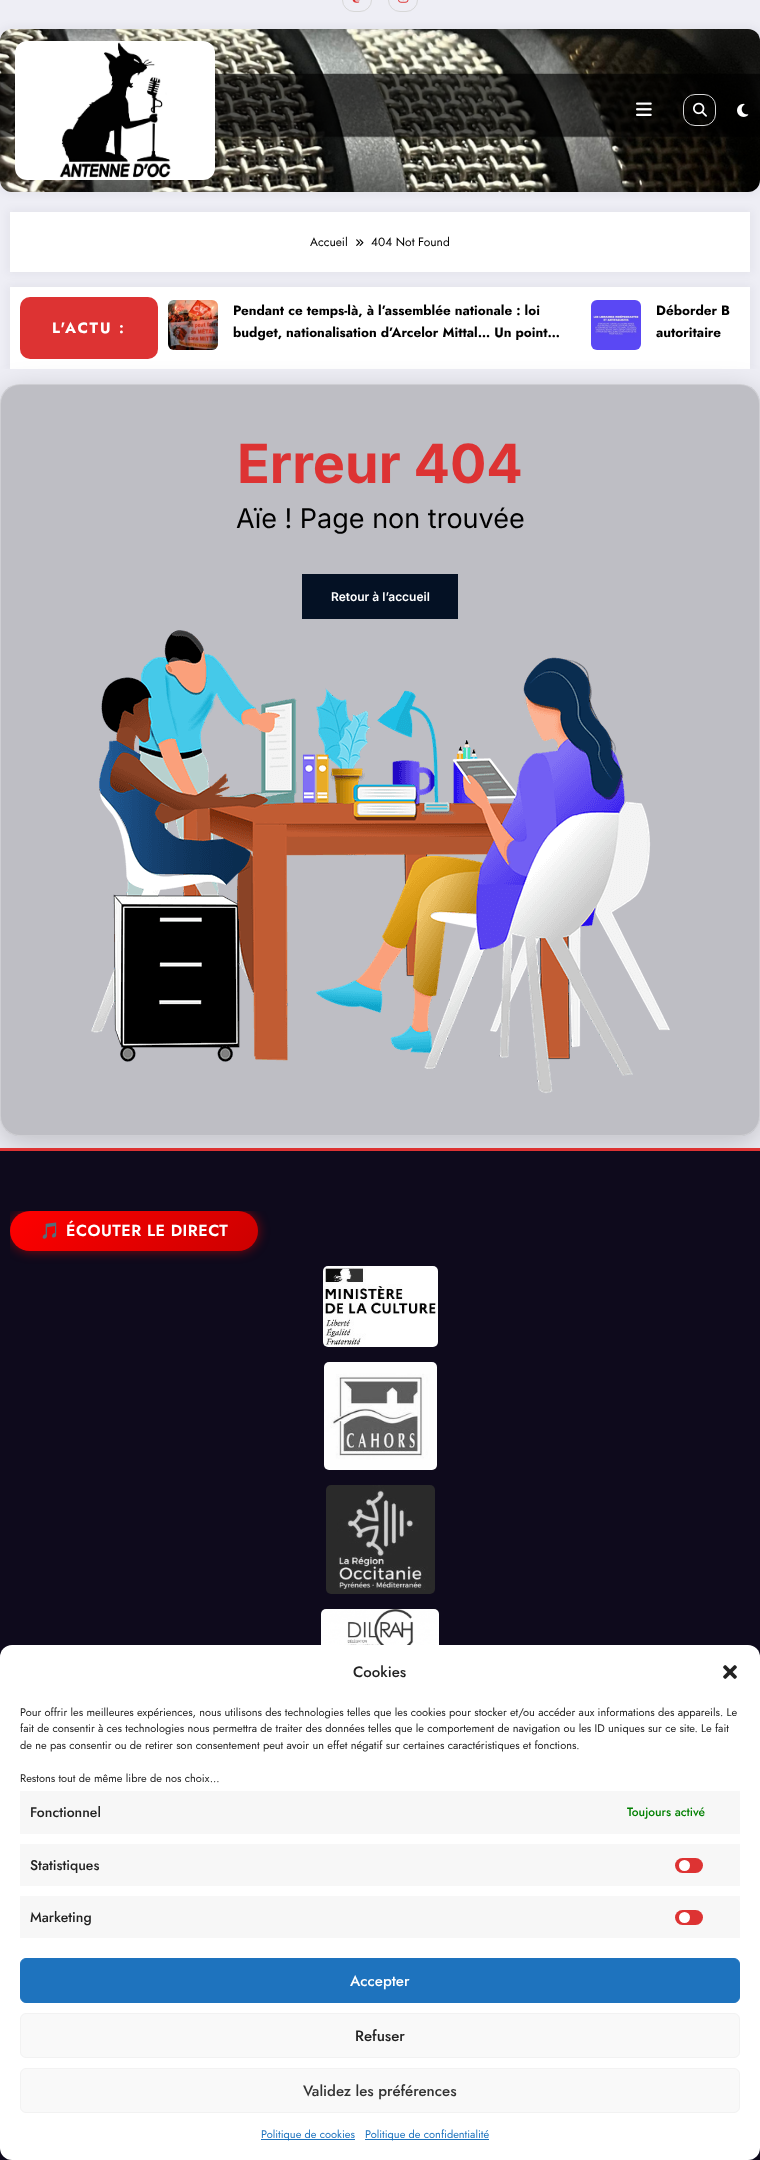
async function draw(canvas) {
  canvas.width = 760;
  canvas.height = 2160;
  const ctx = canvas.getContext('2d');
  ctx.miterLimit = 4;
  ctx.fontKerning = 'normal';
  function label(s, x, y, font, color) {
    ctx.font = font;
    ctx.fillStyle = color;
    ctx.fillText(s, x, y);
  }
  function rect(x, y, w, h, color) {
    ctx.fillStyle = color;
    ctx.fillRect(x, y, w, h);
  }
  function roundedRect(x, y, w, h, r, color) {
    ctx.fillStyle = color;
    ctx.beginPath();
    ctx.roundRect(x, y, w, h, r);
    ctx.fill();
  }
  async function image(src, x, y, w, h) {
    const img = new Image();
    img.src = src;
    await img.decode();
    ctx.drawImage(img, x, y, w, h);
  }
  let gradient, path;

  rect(0, 0, 760, 2160, '#eeeef5');
  ctx.beginPath();
  ctx.roundRect(342.5, -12.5, 29, 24, 11.5);
  ctx.strokeStyle = '#d7d7d7';
  ctx.stroke();
  await image('assets/img1.png', 352, 0, 8, 3);
  ctx.beginPath();
  ctx.roundRect(388.5, -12.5, 29, 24, 11.5);
  ctx.stroke();
  await image('assets/img2.png', 398, 0, 11, 3);
  ctx.fillStyle = '#1717230d';
  ctx.filter = 'blur(4px)';
  ctx.beginPath();
  ctx.roundRect(-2, 27, 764, 167, 14);
  ctx.fill();
  ctx.filter = 'none';
  await image('assets/img3.png', 0, 29, 760, 163);
  await image('assets/img4.png', 15, 41, 200, 139);
  await image('assets/img5.png', 636, 102, 16, 14);
  ctx.beginPath();
  ctx.roundRect(683.5, 94.5, 32, 31, 11.5);
  ctx.stroke();
  await image('assets/img6.png', 693, 102, 14, 15);
  await image('assets/img7.png', 737, 103, 12, 14);
  ctx.filter = 'blur(4px)';
  ctx.beginPath();
  ctx.rect(8, 210, 744, 64);
  ctx.fill();
  ctx.filter = 'none';
  rect(10, 212, 740, 60, '#fff');
  label('Accueil', 310, 246, '12px Jost', '#000');
  await image('assets/img8.png', 356, 239, 8, 7);
  label('404 Not Found', 371, 246, '12px Jost', '#000');
  ctx.save();
  ctx.beginPath();
  ctx.rect(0, 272, 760, 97);
  ctx.clip();
  ctx.fillStyle = '#1717230d';
  ctx.filter = 'blur(4px)';
  ctx.beginPath();
  ctx.rect(8, 285, 744, 86);
  ctx.fill();
  ctx.filter = 'none';
  ctx.restore();
  rect(10, 287, 740, 82, '#fff');
  await image('assets/img9.png', 168, 300, 50, 50);
  await image('assets/img10.png', 591, 300, 50, 50);
  ctx.save();
  path = new Path2D('M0 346H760V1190H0ZM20 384H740C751 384 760 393 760 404V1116C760 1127 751 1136 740 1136H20C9 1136 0 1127 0 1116V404C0 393 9 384 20 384Z');
  ctx.clip(path, 'evenodd');
  ctx.fillStyle = '#00000033';
  ctx.filter = 'blur(15px)';
  ctx.beginPath();
  ctx.roundRect(0, 392, 760, 752, 20);
  ctx.fill();
  ctx.filter = 'none';
  ctx.restore();
  roundedRect(20, 297, 138, 62, 10, '#d33');
  ctx.letterSpacing = '2px';
  label('L\'ACTU :', 52, 333, 'bold 15px Jost', '#fff');
  ctx.letterSpacing = '0px';
  label('Pendant ce temps-là, à l’assemblée nationale : loi', 233, 315, 'bold 13.5px Jost', '#000');
  label('budget, nationalisation d’Arcelor Mittal… Un point…', 233, 337, 'bold 13.5px Jost', '#000');
  label('Déborder B', 656, 315, 'bold 13.5px Jost', '#000');
  label('autoritaire', 656, 337, 'bold 13.5px Jost', '#000');
  roundedRect(0, 384, 760, 752, 20, '#00000033');
  ctx.beginPath();
  ctx.roundRect(0.5, 384.5, 759, 751, 19.5);
  ctx.strokeStyle = '#ffffff40';
  ctx.stroke();
  label('Erreur 404', 237, 483, 'bold 54px Inter', '#d33');
  label('Aïe ! Page non trouvée', 236, 528, '27px Inter', '#000');
  rect(302, 574, 156, 45, '#041124');
  label('Retour à l’accueil', 331, 601, '600 12px Inter', '#fff');
  await image('assets/img11.png', 91, 630, 579, 464);
  rect(0, 1148, 760, 3, '#d33');
  rect(0, 1151, 760, 1009, '#0e0a1c');
  ctx.save();
  ctx.beginPath();
  ctx.rect(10, 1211, 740, 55);
  ctx.clip();
  ctx.fillStyle = '#ff000080';
  ctx.filter = 'blur(6px)';
  ctx.beginPath();
  ctx.roundRect(10, 1211, 248, 40, 20);
  ctx.fill();
  ctx.filter = 'none';
  ctx.restore();
  gradient = ctx.createLinearGradient(62, 1159, 206, 1303);
  gradient.addColorStop(0, '#f00');
  gradient.addColorStop(1, '#c00');
  ctx.fillStyle = gradient;
  ctx.beginPath();
  ctx.roundRect(10, 1211, 248, 40, 20);
  ctx.fill();
  ctx.letterSpacing = '0.5px';
  label('🎵', 40, 1236, 'bold 16px Noto Color Emoji', '#fff');
  label('ÉCOUTER LE DIRECT', 66, 1236, '600 16px Jost', '#fff');
  await image('assets/img12.png', 323, 1266, 115, 81);
  await image('assets/img13.png', 324, 1362, 113, 108);
  await image('assets/img14.png', 326, 1485, 109, 109);
  await image('assets/img15.png', 321, 1609, 118, 36);
  roundedRect(0, 1645, 760, 515, 12, '#fff');
  ctx.letterSpacing = '0px';
  label('Cookies', 353, 1677, '500 15px Jost', '#222');
  await image('assets/img16.png', 723, 1665, 14, 14);
  label('Pour offrir les meilleures expériences, nous utilisons des technologies telles que les cookies pour stocker et/ou accéder aux informations des appareils. Le', 20, 1716, '11px Jost', '#222');
  label('fait de consentir à ces technologies nous permettra de traiter des données telles que le comportement de navigation ou les ID uniques sur ce site. Le fait', 20, 1732, '11px Jost', '#222');
  label('de ne pas consentir ou de retirer son consentement peut avoir un effet négatif sur certaines caractéristiques et fonctions.', 20, 1749, '11px Jost', '#222');
  label('Restons tout de même libre de nos choix...', 20, 1782, '11px Jost', '#222');
  rect(20, 1791, 720, 43, '#f7f7f7');
  label('Fonctionnel', 30, 1817, '500 14px Jost', '#222');
  label('Toujours activé', 627, 1816, '500 12px Jost', '#008000');
  rect(20, 1844, 720, 42, '#f7f7f7');
  label('Statistiques', 30, 1870, '500 14px Jost', '#222');
  roundedRect(675, 1858, 28, 15, 7.5, '#d33');
  ctx.fillStyle = '#fff';
  ctx.beginPath();
  ctx.arc(684.5, 1865.5, 5.5, 0, 2 * Math.PI);
  ctx.fill();
  rect(20, 1896, 720, 42, '#f7f7f7');
  label('Marketing', 30, 1922, '500 14px Jost', '#222');
  roundedRect(675, 1910, 28, 15, 7.5, '#d33');
  ctx.fillStyle = '#fff';
  ctx.beginPath();
  ctx.arc(684.5, 1917.5, 5.5, 0, 2 * Math.PI);
  ctx.fill();
  ctx.fillStyle = '#1e73be';
  ctx.beginPath();
  ctx.roundRect(20.5, 1958.5, 719, 44, 5.5);
  ctx.fill();
  ctx.strokeStyle = '#1e73be';
  ctx.stroke();
  label('Accepter', 350, 1986, '500 15px Jost', '#fff');
  ctx.fillStyle = '#f9f9f9';
  ctx.beginPath();
  ctx.roundRect(20.5, 2013.5, 719, 44, 5.5);
  ctx.fill();
  ctx.strokeStyle = '#f2f2f2';
  ctx.stroke();
  label('Refuser', 355, 2041, '500 15px Jost', '#222');
  ctx.fillStyle = '#f9f9f9';
  ctx.beginPath();
  ctx.roundRect(20.5, 2068.5, 719, 44, 5.5);
  ctx.fill();
  ctx.stroke();
  label('Validez les préférences', 303, 2096, '500 15px Jost', '#333');
  rect(261, 2139, 94, 1, '#1e73be');
  label('Politique de cookies', 261, 2138, '11px Jost', '#1e73be');
  rect(365, 2139, 124, 1, '#1e73be');
  label('Politique de confidentialité', 365, 2138, '11px Jost', '#1e73be');
}

draw(document.querySelector('canvas'));
